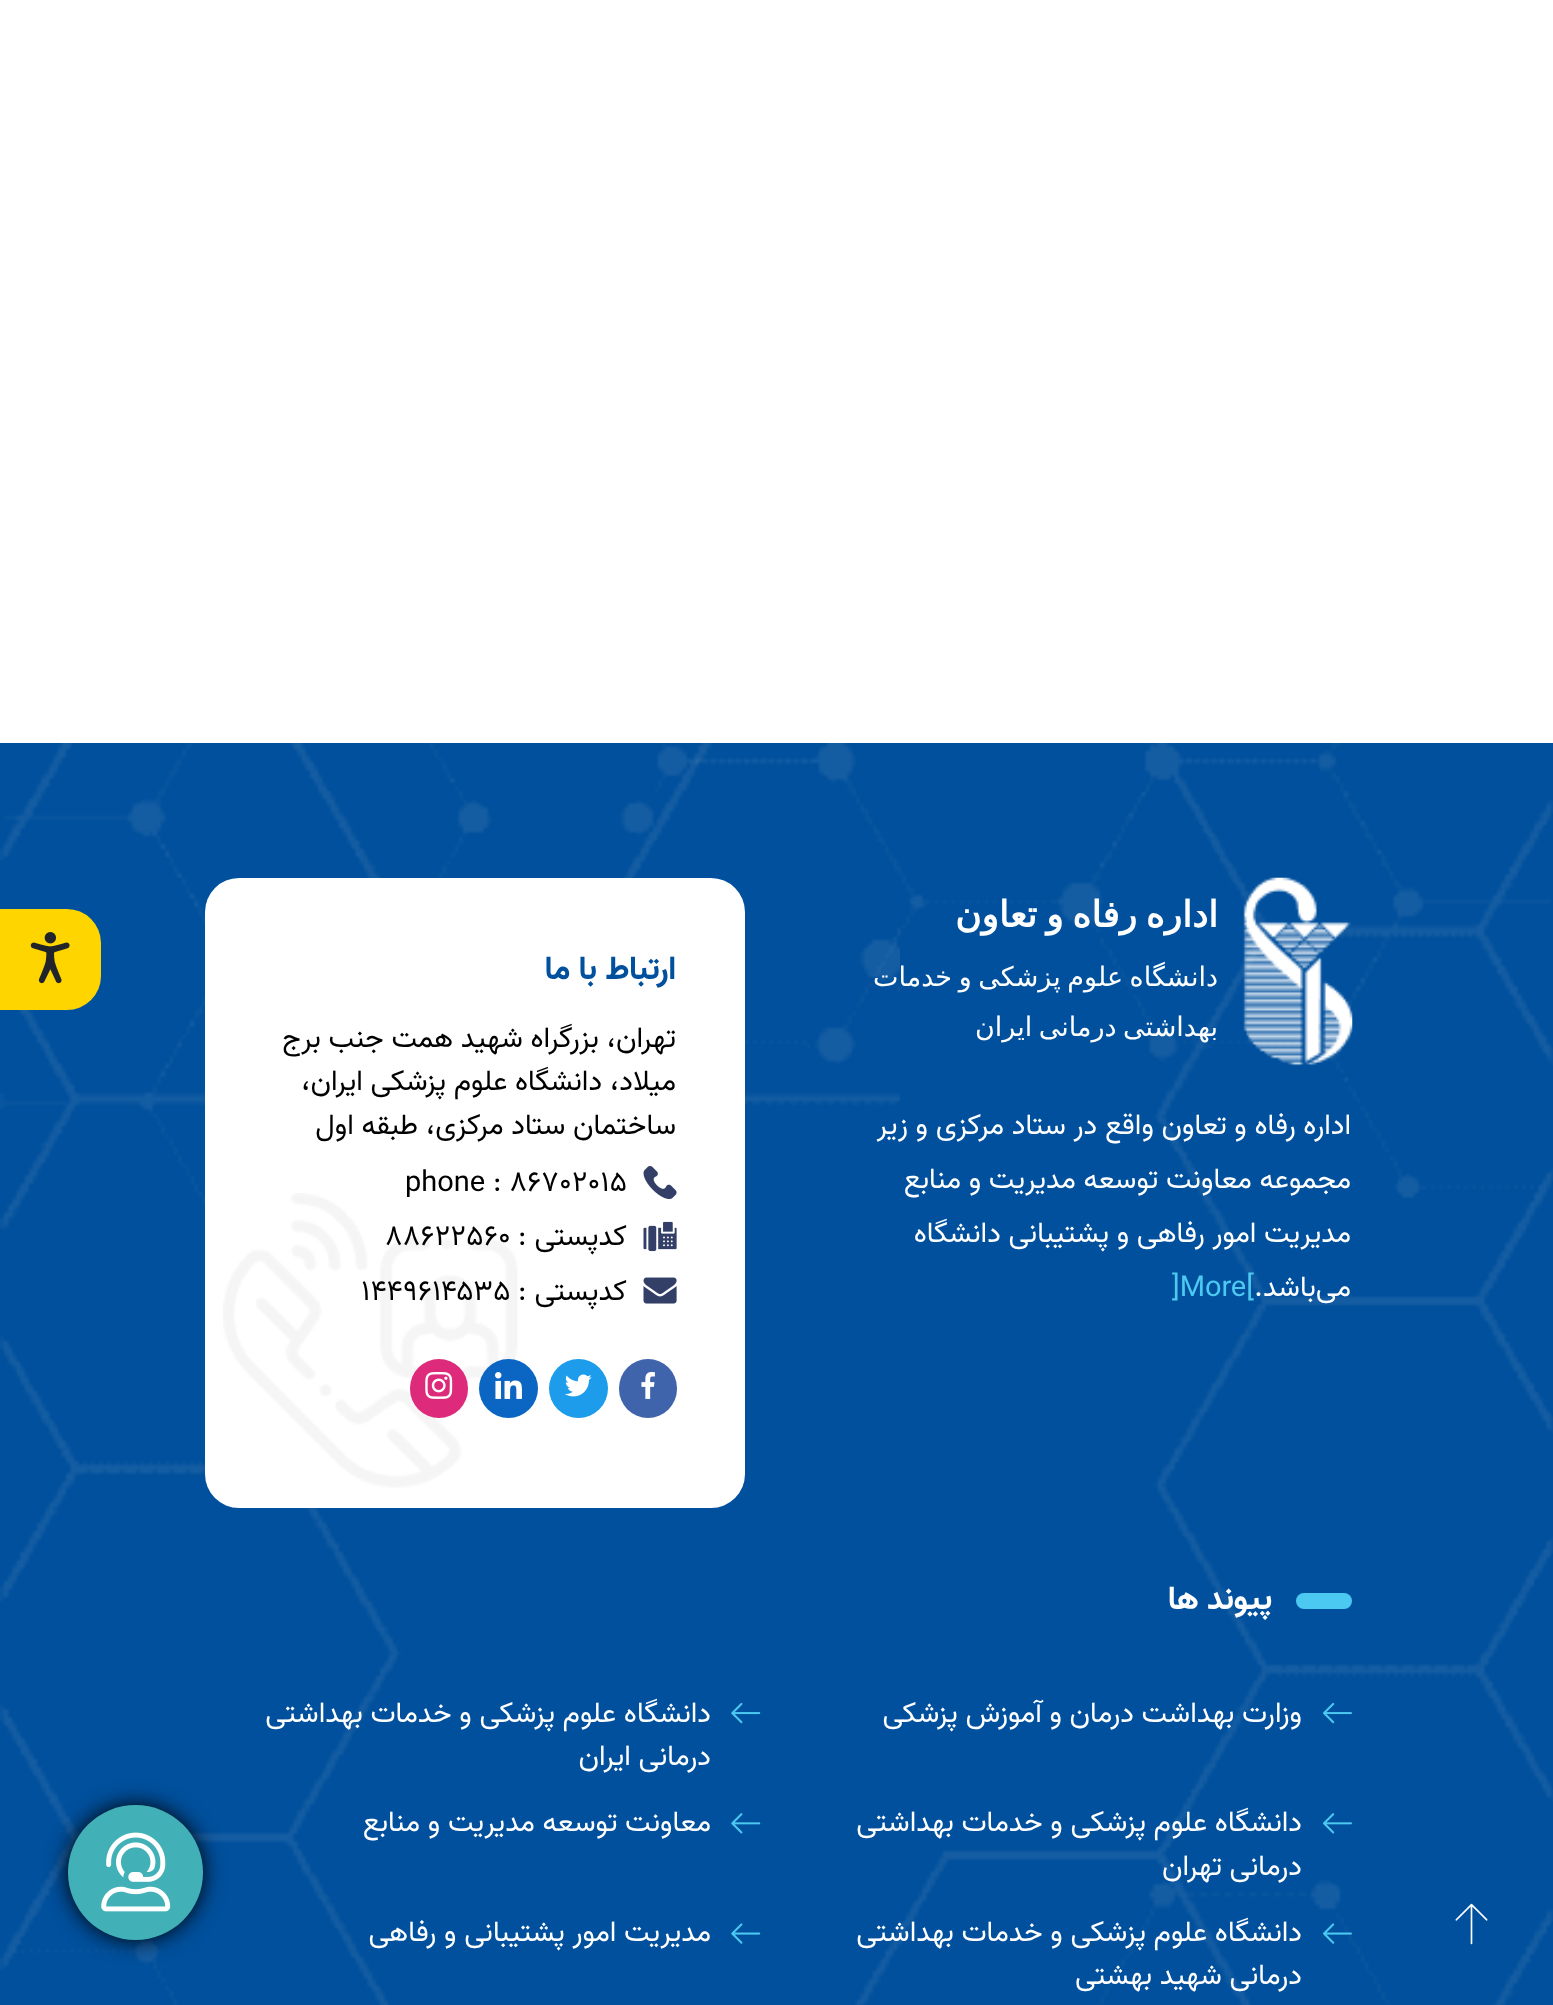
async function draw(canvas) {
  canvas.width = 1553;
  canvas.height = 2005;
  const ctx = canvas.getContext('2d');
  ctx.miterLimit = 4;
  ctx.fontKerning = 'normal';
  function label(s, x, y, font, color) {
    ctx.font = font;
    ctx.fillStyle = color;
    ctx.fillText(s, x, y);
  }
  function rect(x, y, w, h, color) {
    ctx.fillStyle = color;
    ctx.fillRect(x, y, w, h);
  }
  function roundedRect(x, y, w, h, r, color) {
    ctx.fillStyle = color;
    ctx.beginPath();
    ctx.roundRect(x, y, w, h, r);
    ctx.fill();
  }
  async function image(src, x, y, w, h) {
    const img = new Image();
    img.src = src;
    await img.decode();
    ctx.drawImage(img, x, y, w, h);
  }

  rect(0, 0, 1553, 2005, '#fff');
  rect(0, 743, 1553, 1262, '#00509d');
  await image('assets/img1.png', 655, 743, 898, 1262);
  await image('assets/img2.png', 0, 743, 900, 1262);
  await image('assets/img3.png', 1243, 877, 110, 189);
  ctx.wordSpacing = '-2.5px';
  ctx.direction = 'rtl';
  label('اداره رفاه و تعاون', 1218, 927, 'bold 36px DejaVu Sans', '#fff');
  ctx.wordSpacing = '-2px';
  label('دانشگاه علوم پزشکی و خدمات', 1218, 986, '27px DejaVu Sans', '#fff');
  label('بهداشتی درمانی ایران', 1218, 1036, '27px DejaVu Sans', '#fff');
  ctx.wordSpacing = '0px';
  label('اداره رفاه و تعاون واقع در ستاد مرکزی و زیر', 1351, 1134, '29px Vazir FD', '#fff');
  label('مجموعه معاونت توسعه مدیریت و منابع', 1351, 1188, '29px Vazir FD', '#fff');
  label('مدیریت امور رفاهی و پشتیبانی دانشگاه', 1351, 1242, '29px Vazir FD', '#fff');
  label('می‌باشد.', 1351, 1296, '29px Vazir FD', '#fff');
  ctx.direction = 'ltr';
  label(']More[', 1172, 1296, '29px Vazir FD', '#4cc9f0');
  roundedRect(205, 878, 540, 630, 34, '#fff');
  ctx.direction = 'rtl';
  label('ارتباط با ما', 676, 979, 'bold 33px Vazir FD', '#00509d');
  label('تهران، بزرگراه شهید همت جنب برج', 676, 1047, '29px Vazir FD', '#000');
  label('میلاد، دانشگاه علوم پزشکی ایران،', 676, 1090, '29px Vazir FD', '#000');
  label('ساختمان ستاد مرکزی، طبقه اول', 676, 1134, '29px Vazir FD', '#000');
  await image('assets/img4.png', 643, 1166, 34, 34);
  await image('assets/img11.png', 223, 1193, 295, 295);
  ctx.direction = 'ltr';
  label('phone : 86702015', 405, 1191, '29px Vazir FD', '#000');
  await image('assets/img5.png', 643, 1221, 34, 31);
  ctx.direction = 'rtl';
  label('کدپستی :', 627, 1245, '29px Vazir FD', '#000');
  ctx.direction = 'ltr';
  label('88622560', 385, 1245, '29px Vazir FD', '#000');
  await image('assets/img6.png', 643, 1277, 34, 27);
  ctx.direction = 'rtl';
  label('کدپستی :', 627, 1300, '29px Vazir FD', '#000');
  ctx.direction = 'ltr';
  label('۱۴۴۹۶۱۴۵۳۵', 361, 1300, '29px Vazir FD', '#000');
  roundedRect(619, 1359, 58, 59, 29, '#4064ac');
  await image('assets/img7.png', 641, 1372, 14, 27);
  ctx.fillStyle = '#1c9ceb';
  ctx.beginPath();
  ctx.arc(578.5, 1388.5, 29.5, 0, 2 * Math.PI);
  ctx.fill();
  await image('assets/img8.png', 565, 1374, 27, 23);
  ctx.fillStyle = '#0a66c2';
  ctx.beginPath();
  ctx.arc(508.5, 1388.5, 29.5, 0, 2 * Math.PI);
  ctx.fill();
  await image('assets/img9.png', 495, 1372, 27, 27);
  roundedRect(410, 1359, 58, 59, 29, '#dd2a7b');
  await image('assets/img10.png', 425, 1372, 28, 27);
  roundedRect(1296, 1593, 56, 16, 8, '#4cc9f0');
  ctx.direction = 'rtl';
  label('پیوند ها', 1272, 1609, 'bold 33px Vazir FD', '#fff');
  await image('assets/img12.png', 1323, 1702, 29, 22);
  label('وزارت بهداشت درمان و آموزش پزشکی', 1302, 1722, '29px Vazir FD', '#fff');
  await image('assets/img13.png', 731, 1702, 30, 22);
  label('دانشگاه علوم پزشکی و خدمات بهداشتی', 711, 1722, '29px Vazir FD', '#fff');
  label('درمانی ایران', 711, 1765, '29px Vazir FD', '#fff');
  await image('assets/img14.png', 1323, 1813, 29, 21);
  label('دانشگاه علوم پزشکی و خدمات بهداشتی', 1302, 1831, '29px Vazir FD', '#fff');
  label('درمانی تهران', 1302, 1875, '29px Vazir FD', '#fff');
  await image('assets/img15.png', 731, 1813, 30, 21);
  label('معاونت توسعه مدیریت و منابع', 711, 1831, '29px Vazir FD', '#fff');
  await image('assets/img16.png', 1323, 1923, 29, 21);
  label('دانشگاه علوم پزشکی و خدمات بهداشتی', 1302, 1941, '29px Vazir FD', '#fff');
  label('درمانی شهید بهشتی', 1302, 1984, '29px Vazir FD', '#fff');
  await image('assets/img17.png', 731, 1923, 30, 21);
  label('مدیریت امور پشتیبانی و رفاهی', 711, 1941, '29px Vazir FD', '#fff');
  ctx.fillStyle = '#ffd500';
  ctx.beginPath();
  ctx.roundRect(0, 909, 101, 101, [0, 34, 34, 0]);
  ctx.fill();
  await image('assets/img18.png', 30, 932, 40, 52);
  await image('assets/img19.png', 1455, 1903, 33, 42);
  ctx.fillStyle = '#000';
  ctx.filter = 'blur(11px)';
  ctx.beginPath();
  ctx.roundRect(68, 1805, 135, 135, 67.5);
  ctx.fill();
  ctx.filter = 'none';
  ctx.fillStyle = '#42b1b7';
  ctx.beginPath();
  ctx.arc(135.5, 1872.5, 67.5, 0, 2 * Math.PI);
  ctx.fill();
  await image('assets/img20.png', 101, 1832, 70, 80);
}

draw(document.querySelector('canvas'));
